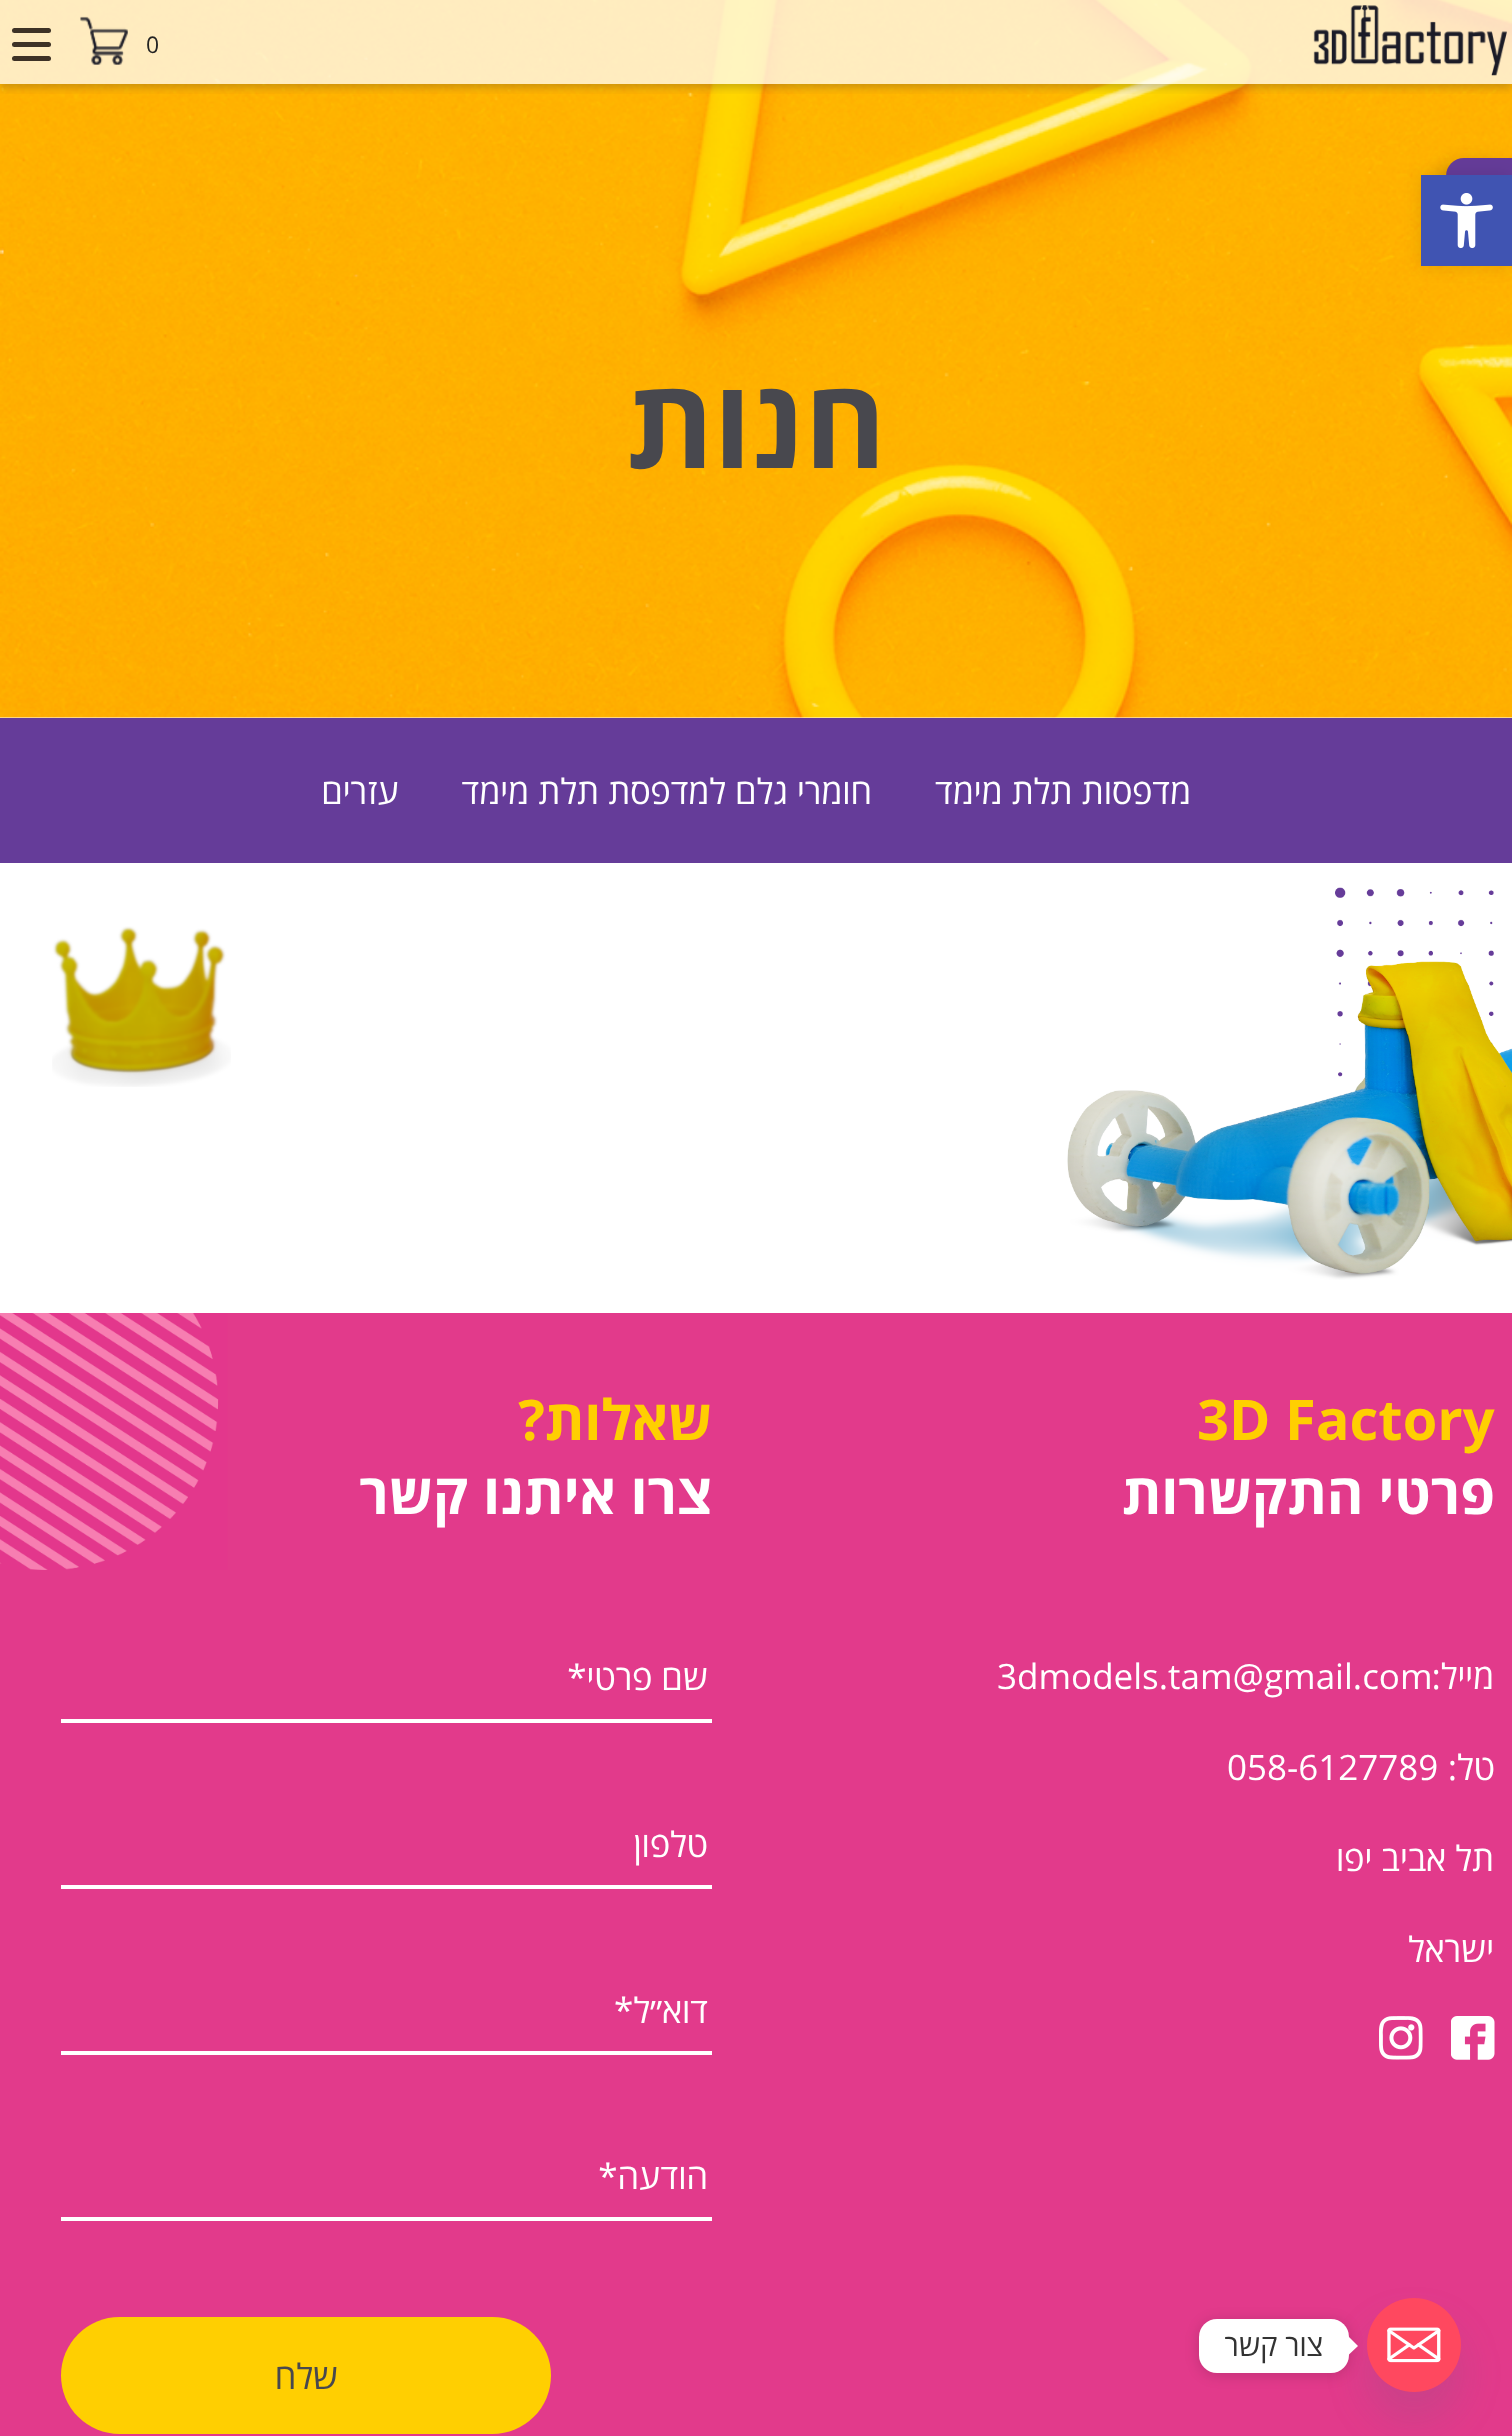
async function draw(canvas) {
  canvas.width = 1512;
  canvas.height = 2436;
  const ctx = canvas.getContext('2d');
  ctx.miterLimit = 4;
  ctx.fontKerning = 'normal';
  function label(s, x, y, font, color) {
    ctx.font = font;
    ctx.fillStyle = color;
    ctx.fillText(s, x, y);
  }
  function rect(x, y, w, h, color) {
    ctx.fillStyle = color;
    ctx.fillRect(x, y, w, h);
  }
  function roundedRect(x, y, w, h, r, color) {
    ctx.fillStyle = color;
    ctx.beginPath();
    ctx.roundRect(x, y, w, h, r);
    ctx.fill();
  }
  async function image(src, x, y, w, h) {
    const img = new Image();
    img.src = src;
    await img.decode();
    ctx.drawImage(img, x, y, w, h);
  }
  let path;

  rect(0, 0, 1512, 2436, '#fff');
  await image('assets/img6.png', 0, 0, 1512, 718);
  ctx.save();
  ctx.beginPath();
  ctx.rect(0, 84, 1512, 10);
  ctx.clip();
  ctx.fillStyle = '#32323240';
  ctx.filter = 'blur(4.5px)';
  ctx.beginPath();
  ctx.rect(0, 4, 1512, 84);
  ctx.fill();
  ctx.filter = 'none';
  ctx.restore();
  rect(0, 0, 1512, 84, '#ffffffbf');
  await image('assets/img1.png', 1313, 5, 194, 71);
  label('0', 146, 53, '23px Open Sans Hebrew', '#232323');
  await image('assets/img2.png', 80, 16, 48, 49);
  roundedRect(12, 28, 39, 5, 2.5, '#3e3226');
  roundedRect(12, 42, 39, 5, 2.5, '#3e3226');
  roundedRect(12, 56, 39, 5, 2.5, '#3e3226');
  ctx.fillStyle = '#00000029';
  ctx.filter = 'blur(9px)';
  ctx.beginPath();
  ctx.roundRect(1440, 163, 67, 79, 18);
  ctx.fill();
  ctx.filter = 'none';
  ctx.fillStyle = '#653c99';
  ctx.beginPath();
  ctx.roundRect(1446, 158, 66, 78, [18, 0, 0, 18]);
  ctx.fill();
  await image('assets/img3.png', 1067, 887, 445, 393);
  await image('assets/img4.png', 52, 926, 179, 161);
  ctx.fillStyle = '#0000001a';
  ctx.filter = 'blur(9px)';
  ctx.beginPath();
  ctx.rect(1421, 175, 91, 91);
  ctx.fill();
  ctx.filter = 'none';
  rect(1421, 175, 91, 91, '#4054b2');
  await image('assets/img5.png', 1440, 193, 53, 56);
  ctx.direction = 'rtl';
  label('חנות', 886, 468, 'bold 124px Open Sans Hebrew', '#48484e');
  rect(0, 718, 1512, 145, '#653c99');
  label('מדפסות תלת מימד', 1191, 804, '35px Open Sans Hebrew', '#fff');
  label('חומרי גלם למדפסת תלת מימד', 872, 804, '35px Open Sans Hebrew', '#fff');
  label('עזרים', 399, 804, '35px Open Sans Hebrew', '#fff');
  rect(0, 1313, 1512, 1123, '#e23a8b');
  ctx.direction = 'ltr';
  label('3D Factory', 1197, 1440, 'bold 56px Open Sans Hebrew', '#ffcf01');
  ctx.direction = 'rtl';
  label('פרטי התקשרות', 1495, 1514, 'bold 56px Open Sans Hebrew', '#fff');
  label('מייל:', 1494, 1689, '35px Open Sans Hebrew', '#fff');
  ctx.direction = 'ltr';
  label('3dmodels.tam@gmail.com', 997, 1689, '35px Open Sans Hebrew', '#fff');
  ctx.direction = 'rtl';
  label('טל:', 1495, 1780, '35px Open Sans Hebrew', '#fff');
  ctx.direction = 'ltr';
  label('058-6127789', 1227, 1780, '35px Open Sans Hebrew', '#fff');
  ctx.direction = 'rtl';
  label('תל אביב יפו', 1494, 1871, '35px Open Sans Hebrew', '#fff');
  label('ישראל', 1494, 1962, '35px Open Sans Hebrew', '#fff');
  await image('assets/img7.png', 1451, 2016, 44, 44);
  await image('assets/img8.png', 1379, 2016, 44, 44);
  label('שאלות?', 712, 1440, 'bold 56px Open Sans Hebrew', '#ffcf01');
  label('צרו איתנו קשר', 712, 1514, 'bold 56px Open Sans Hebrew', '#fff');
  rect(61, 1719, 651, 4, '#fff');
  label('שם פרטי*', 708, 1690, '35px Open Sans Hebrew', '#fff');
  rect(61, 1885, 651, 4, '#fff');
  label('טלפון', 708, 1857, '35px Open Sans Hebrew', '#fff');
  rect(61, 2051, 651, 4, '#fff');
  label('דוא״ל*', 708, 2023, '35px Open Sans Hebrew', '#fff');
  rect(61, 2217, 651, 4, '#fff');
  label('הודעה*', 708, 2189, '35px Open Sans Hebrew', '#fff');
  roundedRect(61, 2317, 490, 117, 58.5, '#ffcf01');
  label('שלח', 338, 2389, '35px Open Sans Hebrew', '#48484e');
  await image('assets/img9.png', 0, 1313, 228, 257);
  ctx.fillStyle = '#49687e29';
  ctx.filter = 'blur(21px)';
  ctx.beginPath();
  ctx.roundRect(1367, 2326, 94, 94, 47);
  ctx.fill();
  ctx.filter = 'none';
  await image('assets/img10.png', 1367, 2298, 94, 94);
  ctx.fillStyle = '#00000026';
  ctx.filter = 'blur(7px)';
  ctx.beginPath();
  ctx.roundRect(1199, 2321, 150, 54, 18);
  ctx.fill();
  ctx.filter = 'none';
  roundedRect(1199, 2319, 150, 54, 18, '#fff');
  path = new Path2D('M1349 2354.5V2337L1358 2346Z');
  ctx.fill(path);
  label('צור קשר', 1323, 2356, '30px Open Sans Hebrew', '#333');
}

draw(document.querySelector('canvas'));
